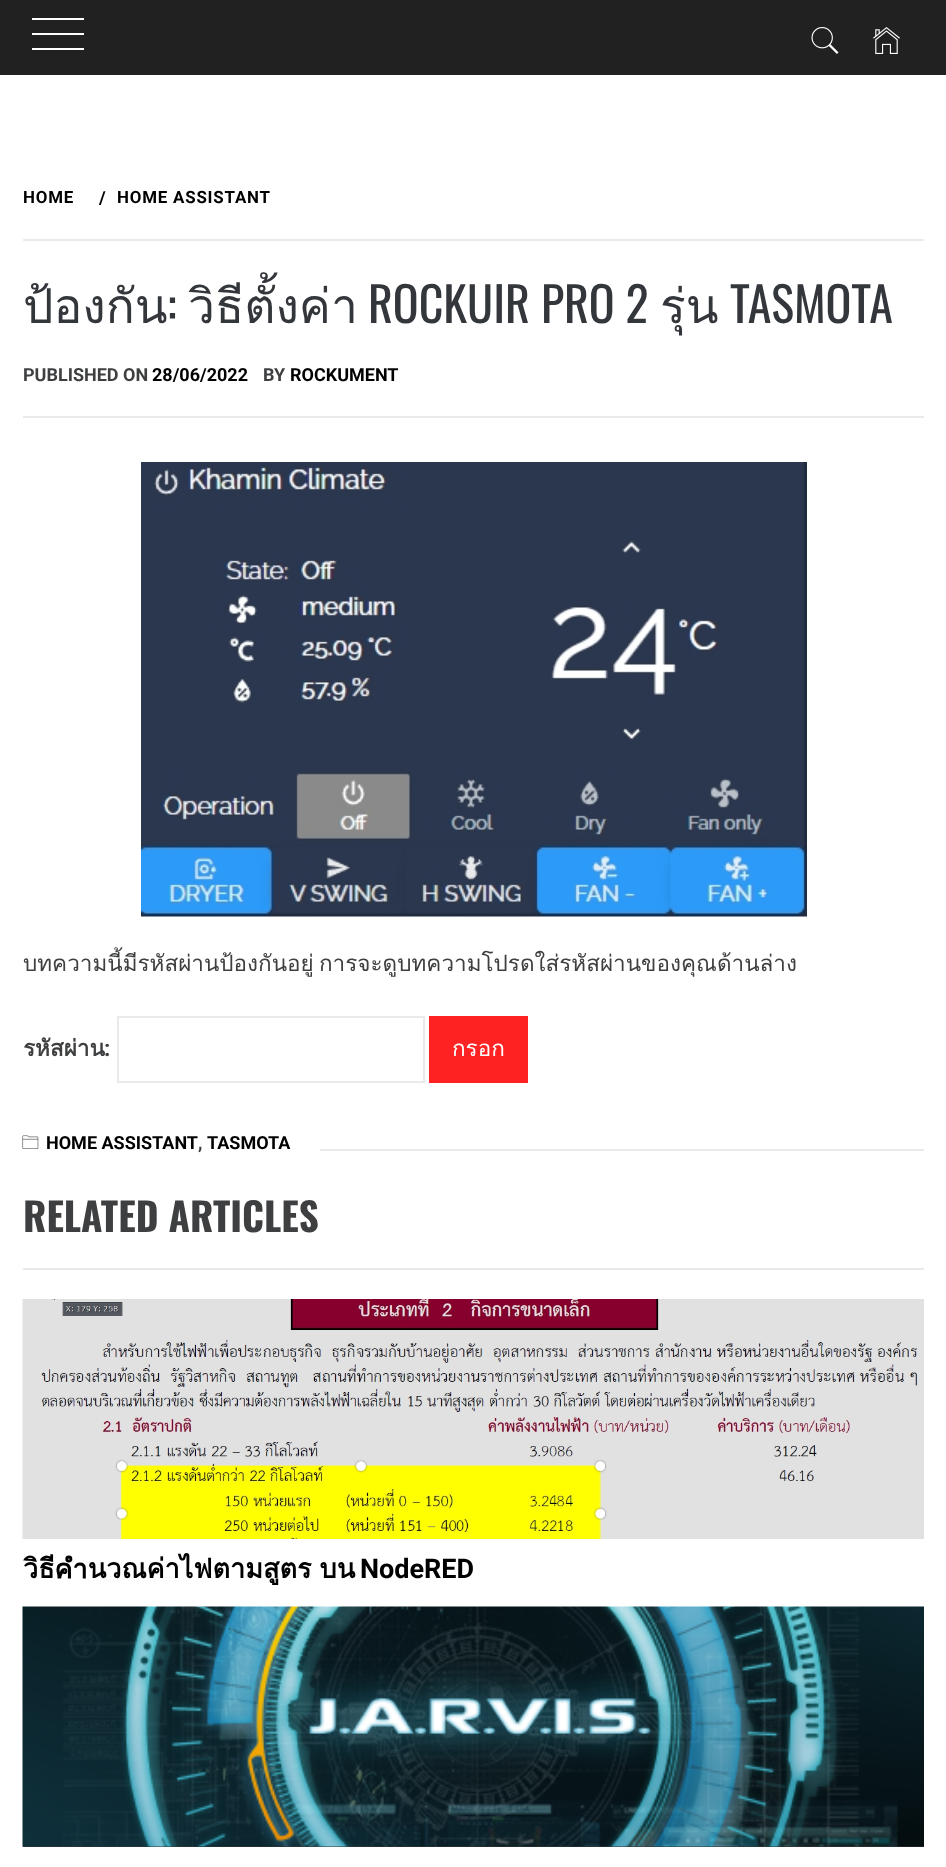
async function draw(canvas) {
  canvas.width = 946;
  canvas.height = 1867;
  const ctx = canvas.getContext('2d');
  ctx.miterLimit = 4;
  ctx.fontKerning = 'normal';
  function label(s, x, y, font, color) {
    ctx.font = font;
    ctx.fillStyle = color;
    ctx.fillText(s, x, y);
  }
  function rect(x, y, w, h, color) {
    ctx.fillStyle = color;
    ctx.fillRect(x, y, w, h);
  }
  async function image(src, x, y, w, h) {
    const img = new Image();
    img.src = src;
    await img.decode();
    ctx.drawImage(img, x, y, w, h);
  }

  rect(0, 0, 946, 1867, '#fff');
  rect(0, 0, 946, 75, '#212121');
  rect(32, 18, 52, 2, '#fff');
  rect(32, 33, 52, 2, '#fff');
  rect(32, 48, 52, 2, '#fff');
  await image('assets/img1.png', 811, 27, 28, 27);
  await image('assets/img2.png', 873, 27, 27, 27);
  rect(23, 416, 901, 2, '#eaeaea');
  rect(23, 239, 901, 2, '#eaeaea');
  ctx.letterSpacing = '0.8px';
  label('HOME', 23, 203, 'bold 16.9px Roboto', '#000');
  label('/', 99, 204, 'bold 18px Roboto', '#000');
  label('HOME ASSISTANT', 117, 203, 'bold 16.9px Roboto', '#000');
  ctx.letterSpacing = '0px';
  label('ป้องกัน', 23, 323, '48px Loma', '#33363b');
  label(':', 167, 323, '48px Oswald', '#33363b');
  label('วิธีตั้งค่า', 188, 323, '48px Loma', '#33363b');
  label('ROCKUIR PRO 2', 368, 323, '48px Oswald', '#33363b');
  label('รุ่น', 660, 323, '48px Loma', '#33363b');
  label('TASMOTA', 730, 323, '48px Oswald', '#33363b');
  label('PUBLISHED ON', 23, 381, 'bold 18px Roboto', '#3e3f40');
  label('28/06/2022', 152, 381, 'bold 18px Roboto', '#000');
  label('BY', 263, 381, 'bold 18px Roboto', '#3e3f40');
  label('ROCKUMENT', 290, 381, 'bold 18px Roboto', '#000');
  await image('assets/img3.png', 141, 462, 666, 455);
  label('บทความนี้มีรหัสผ่านป้องกันอยู่', 23, 971, '22.5px Loma', '#3e3f40');
  label('การจะดูบทความโปรดใส่รหัสผ่านของคุณด้านล่าง', 319, 971, '22.5px Loma', '#3e3f40');
  label('รหัสผ่าน', 23, 1056, 'bold 22.5px Loma', '#3e3f40');
  label(':', 104, 1056, 'bold 22.5px Roboto', '#3e3f40');
  ctx.strokeStyle = '#eaeaea';
  ctx.lineWidth = 2;
  ctx.strokeRect(118, 1017, 306, 65);
  rect(429, 1016, 99, 67, '#f22');
  label('กรอก', 452, 1056, '22.5px Loma', '#fff');
  await image('assets/img4.png', 22, 1135, 17, 14);
  label('HOME ASSISTANT', 46, 1149, 'bold 18px Roboto', '#000');
  label(',', 198, 1149, 'bold 18px Roboto', '#3e3f40');
  label('TASMOTA', 207, 1149, 'bold 18px Roboto', '#000');
  rect(320, 1149, 604, 2, '#eaeaea');
  rect(23, 1268, 901, 2, '#eaeaea');
  label('RELATED ARTICLES', 23, 1232, 'bold 39px Oswald', '#3e3f40');
  await image('assets/img5.png', 22, 1299, 902, 240);
  ctx.wordSpacing = '-1px';
  label('วิธีคำนวณค่าไฟตามสูตร บน', 23, 1578, 'bold 27px Loma', '#000');
  ctx.wordSpacing = '0px';
  label('NodeRED', 360, 1578, 'bold 27px Roboto', '#000');
  rect(23, 1846, 901, 1, '#33363b');
  await image('assets/img6.png', 22, 1606, 902, 241);
}

draw(document.querySelector('canvas'));
